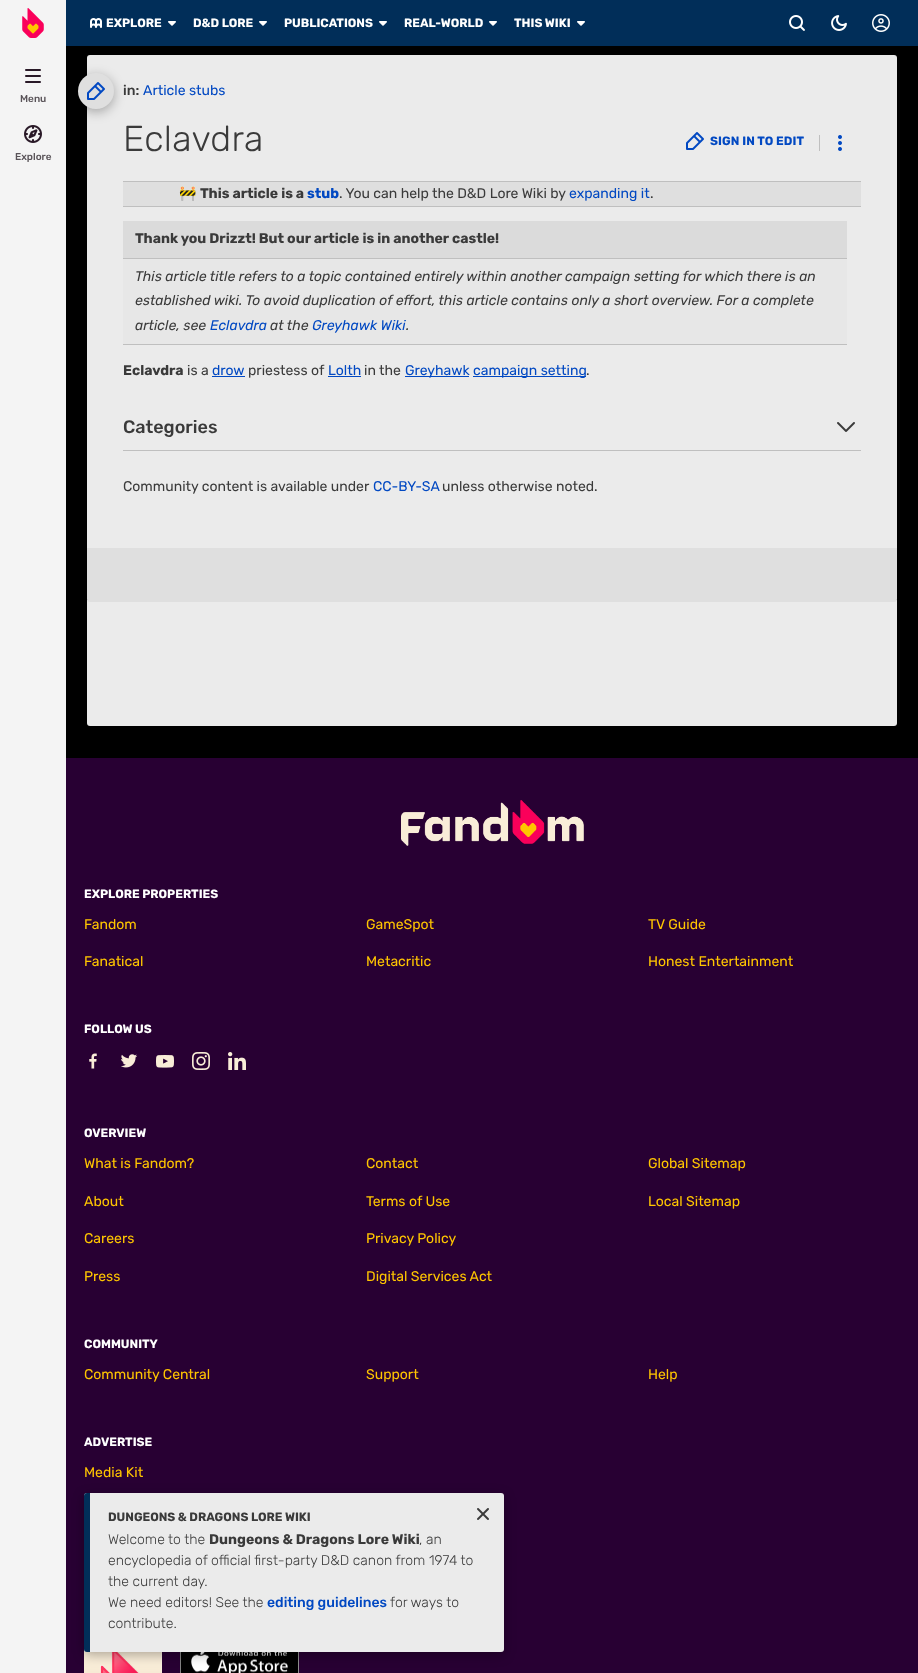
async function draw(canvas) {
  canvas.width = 918;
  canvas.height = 1673;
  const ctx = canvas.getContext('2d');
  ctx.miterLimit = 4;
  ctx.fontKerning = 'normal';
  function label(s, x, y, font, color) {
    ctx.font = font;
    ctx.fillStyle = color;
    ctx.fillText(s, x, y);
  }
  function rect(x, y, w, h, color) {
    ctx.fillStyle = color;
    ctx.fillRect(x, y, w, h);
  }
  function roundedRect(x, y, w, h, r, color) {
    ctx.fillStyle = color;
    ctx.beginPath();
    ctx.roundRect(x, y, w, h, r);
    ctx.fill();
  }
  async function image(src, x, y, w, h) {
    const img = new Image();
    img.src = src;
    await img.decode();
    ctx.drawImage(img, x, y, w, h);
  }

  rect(0, 0, 918, 1673, '#000');
  rect(66, 0, 852, 46, '#012e59');
  ctx.fillStyle = '#ebebeb';
  ctx.beginPath();
  ctx.roundRect(87, 55, 810, 493, [3, 3, 0, 0]);
  ctx.fill();
  ctx.fillStyle = '#0000004d';
  ctx.filter = 'blur(6px)';
  ctx.beginPath();
  ctx.roundRect(78, 76, 36, 36, 18);
  ctx.fill();
  ctx.filter = 'none';
  rect(66, 758, 852, 915, '#280033');
  await image('assets/img19.png', 84, 1649, 78, 24);
  await image('assets/img20.png', 180, 1652, 119, 21);
  ctx.fillStyle = '#0000004d';
  ctx.filter = 'blur(6px)';
  ctx.beginPath();
  ctx.roundRect(84, 1496, 420, 159, 3);
  ctx.fill();
  ctx.filter = 'none';
  rect(0, 0, 66, 1673, '#f4f4f4');
  await image('assets/img1.png', 22, 8, 22, 30);
  await image('assets/img2.png', 90, 18, 12, 10);
  label('EXPLORE', 106, 27, 'bold 12px Rubik', '#fff');
  await image('assets/img3.png', 168, 21, 8, 5);
  label('D&D LORE', 193, 27, 'bold 12px Rubik', '#fff');
  await image('assets/img3.png', 259, 21, 8, 5);
  label('PUBLICATIONS', 284, 27, 'bold 12px Rubik', '#fff');
  await image('assets/img3.png', 379, 21, 8, 5);
  label('REAL-WORLD', 404, 27, 'bold 12px Rubik', '#fff');
  await image('assets/img3.png', 489, 21, 8, 5);
  label('THIS WIKI', 514, 27, 'bold 12px Rubik', '#fff');
  await image('assets/img3.png', 577, 21, 8, 5);
  await image('assets/img4.png', 789, 15, 16, 16);
  await image('assets/img5.png', 831, 15, 16, 16);
  await image('assets/img6.png', 872, 14, 18, 18);
  await image('assets/img7.png', 25, 69, 16, 14);
  label('Menu', 20, 102, '500 10px Rubik', '#595358');
  await image('assets/img8.png', 24, 125, 18, 18);
  label('Explore', 15, 160, '500 10px Rubik', '#595358');
  ctx.fillStyle = '#dfdfdf';
  ctx.beginPath();
  ctx.arc(96, 91, 18, 0, 2 * Math.PI);
  ctx.fill();
  await image('assets/img9.png', 87, 82, 18, 18);
  label('in:', 123, 95, '500 14px Rubik', '#3a3a3a');
  label('Article stubs', 143, 95, '14px Rubik', '#0148c2');
  ctx.letterSpacing = '0.25px';
  label('Eclavdra', 123, 151, '300 36px Rubik', '#3a3a3a');
  await image('assets/img10.png', 686, 132, 18, 18);
  ctx.letterSpacing = '0.1px';
  label('SIGN IN TO EDIT', 710, 145, 'bold 12px Rubik', '#0148c2');
  rect(819, 135, 1, 16, '#bfbfbf');
  await image('assets/img11.png', 838, 135, 4, 16);
  rect(123, 182, 738, 24, '#dfdfdf');
  rect(123, 181, 738, 1, '#bfbfbf');
  rect(123, 206, 738, 1, '#bfbfbf');
  ctx.letterSpacing = '0px';
  label('🚧', 179, 198, '14px Noto Color Emoji', '#3a3a3a');
  label('This article is a', 200, 198, 'bold 14px Rubik', '#3a3a3a');
  label('stub', 307, 198, 'bold 14px Rubik', '#0148c2');
  label('. You can help the D&D Lore Wiki by', 339, 198, '14px Rubik', '#3a3a3a');
  label('expanding it', 569, 198, '14px Rubik', '#0148c2');
  label('.', 650, 198, '14px Rubik', '#3a3a3a');
  rect(123, 259, 724, 85, '#e7e7e7');
  rect(123, 221, 724, 37, '#dbdbdb');
  rect(123, 258, 724, 1, '#bfbfbf');
  label('Thank you Drizzt! But our article is in another castle!', 135, 243, 'bold 14px Rubik', '#3a3a3a');
  rect(123, 344, 724, 1, '#bfbfbf');
  label('This article title refers to a topic contained entirely within another campaign setting for which there is an', 135, 281, 'italic 14px Rubik', '#3a3a3a');
  label('established wiki. To avoid duplication of effort, this article contains only a short overview. For a complete', 135, 305, 'italic 14px Rubik', '#3a3a3a');
  label('article, see', 135, 330, 'italic 14px Rubik', '#3a3a3a');
  label('Eclavdra', 210, 330, 'italic 14px Rubik', '#0148c2');
  label('at the', 270, 330, 'italic 14px Rubik', '#3a3a3a');
  label('Greyhawk Wiki', 312, 330, 'italic 14px Rubik', '#0148c2');
  label('.', 406, 330, 'italic 14px Rubik', '#3a3a3a');
  label('Eclavdra', 123, 375, 'bold 14px Rubik', '#3a3a3a');
  label('is a', 187, 375, '14px Rubik', '#3a3a3a');
  label('drow', 212, 375, '14px Rubik', '#0148c2');
  rect(212, 376, 33, 1, '#0148c2');
  label('priestess of', 248, 375, '14px Rubik', '#3a3a3a');
  label('Lolth', 328, 375, '14px Rubik', '#0148c2');
  rect(328, 376, 33, 1, '#0148c2');
  label('in the', 364, 375, '14px Rubik', '#3a3a3a');
  rect(405, 376, 64, 1, '#0148c2');
  label('Greyhawk', 405, 375, '14px Rubik', '#0148c2');
  rect(473, 376, 113, 1, '#0148c2');
  label('campaign setting', 473, 375, '14px Rubik', '#0148c2');
  label('.', 586, 375, '14px Rubik', '#3a3a3a');
  rect(123, 450, 738, 1, '#bfbfbf');
  label('Categories', 123, 433, '500 18px Rubik', '#3a3a3a');
  await image('assets/img12.png', 837, 422, 18, 10);
  label('Community content is available under', 123, 491, '14px Rubik', '#3a3a3a');
  label('CC-BY-SA', 373, 491, '14px Rubik', '#0148c2');
  label('unless otherwise noted.', 442, 491, '14px Rubik', '#3a3a3a');
  ctx.fillStyle = '#ebebeb';
  ctx.beginPath();
  ctx.roundRect(87, 600, 810, 126, [0, 0, 3, 3]);
  ctx.fill();
  ctx.fillStyle = '#dfdfdf';
  ctx.beginPath();
  ctx.roundRect(87, 548, 810, 54, [0, 0, 3, 3]);
  ctx.fill();
  await image('assets/img13.png', 401, 800, 183, 46);
  label('EXPLORE PROPERTIES', 84, 898, 'bold 12px Rubik', '#fff');
  label('Fandom', 84, 929, '14px Rubik', '#ffc500');
  label('GameSpot', 366, 929, '14px Rubik', '#ffc500');
  label('TV Guide', 648, 929, '14px Rubik', '#ffc500');
  label('Fanatical', 84, 966, '14px Rubik', '#ffc500');
  label('Metacritic', 366, 966, '14px Rubik', '#ffc500');
  label('Honest Entertainment', 648, 966, '14px Rubik', '#ffc500');
  label('FOLLOW US', 84, 1033, 'bold 12px Rubik', '#fff');
  await image('assets/img14.png', 89, 1053, 8, 16);
  await image('assets/img15.png', 121, 1054, 17, 14);
  await image('assets/img16.png', 156, 1055, 18, 13);
  await image('assets/img17.png', 192, 1052, 18, 18);
  await image('assets/img18.png', 228, 1052, 18, 18);
  label('OVERVIEW', 84, 1137, 'bold 12px Rubik', '#fff');
  label('What is Fandom?', 84, 1168, '14px Rubik', '#ffc500');
  label('Contact', 366, 1168, '14px Rubik', '#ffc500');
  label('Global Sitemap', 648, 1168, '14px Rubik', '#ffc500');
  label('About', 84, 1206, '14px Rubik', '#ffc500');
  label('Terms of Use', 366, 1206, '14px Rubik', '#ffc500');
  label('Local Sitemap', 648, 1206, '14px Rubik', '#ffc500');
  label('Careers', 84, 1243, '14px Rubik', '#ffc500');
  label('Privacy Policy', 366, 1243, '14px Rubik', '#ffc500');
  label('Press', 84, 1281, '14px Rubik', '#ffc500');
  label('Digital Services Act', 366, 1281, '14px Rubik', '#ffc500');
  label('COMMUNITY', 84, 1348, 'bold 12px Rubik', '#fff');
  label('Community Central', 84, 1379, '14px Rubik', '#ffc500');
  label('Support', 366, 1379, '14px Rubik', '#ffc500');
  label('Help', 648, 1379, '14px Rubik', '#ffc500');
  label('ADVERTISE', 84, 1446, 'bold 12px Rubik', '#fff');
  label('Media Kit', 84, 1477, '14px Rubik', '#ffc500');
  roundedRect(84, 1493, 420, 159, 3, '#ebebeb');
  ctx.fillStyle = '#012e59';
  ctx.beginPath();
  ctx.roundRect(84, 1493, 6, 159, [3, 0, 0, 3]);
  ctx.fill();
  label('DUNGEONS & DRAGONS LORE WIKI', 108, 1521, 'bold 12px Rubik', '#3a3a3a');
  await image('assets/img21.png', 477, 1508, 12, 12);
  label('Welcome to the', 108, 1544, '300 14px Rubik', '#3a3a3a');
  label('Dungeons & Dragons Lore Wiki', 209, 1544, 'bold 14px Rubik', '#3a3a3a');
  label(', an', 419, 1544, '300 14px Rubik', '#3a3a3a');
  label('encyclopedia of official first-party D&D canon from 1974 to', 108, 1565, '300 14px Rubik', '#3a3a3a');
  label('the current day.', 108, 1586, '300 14px Rubik', '#3a3a3a');
  label('We need editors! See the', 108, 1607, '300 14px Rubik', '#3a3a3a');
  label('editing guidelines', 267, 1607, '500 14px Rubik', '#0148c2');
  label('for ways to', 390, 1607, '300 14px Rubik', '#3a3a3a');
  label('contribute.', 108, 1628, '300 14px Rubik', '#3a3a3a');
}

draw(document.querySelector('canvas'));
